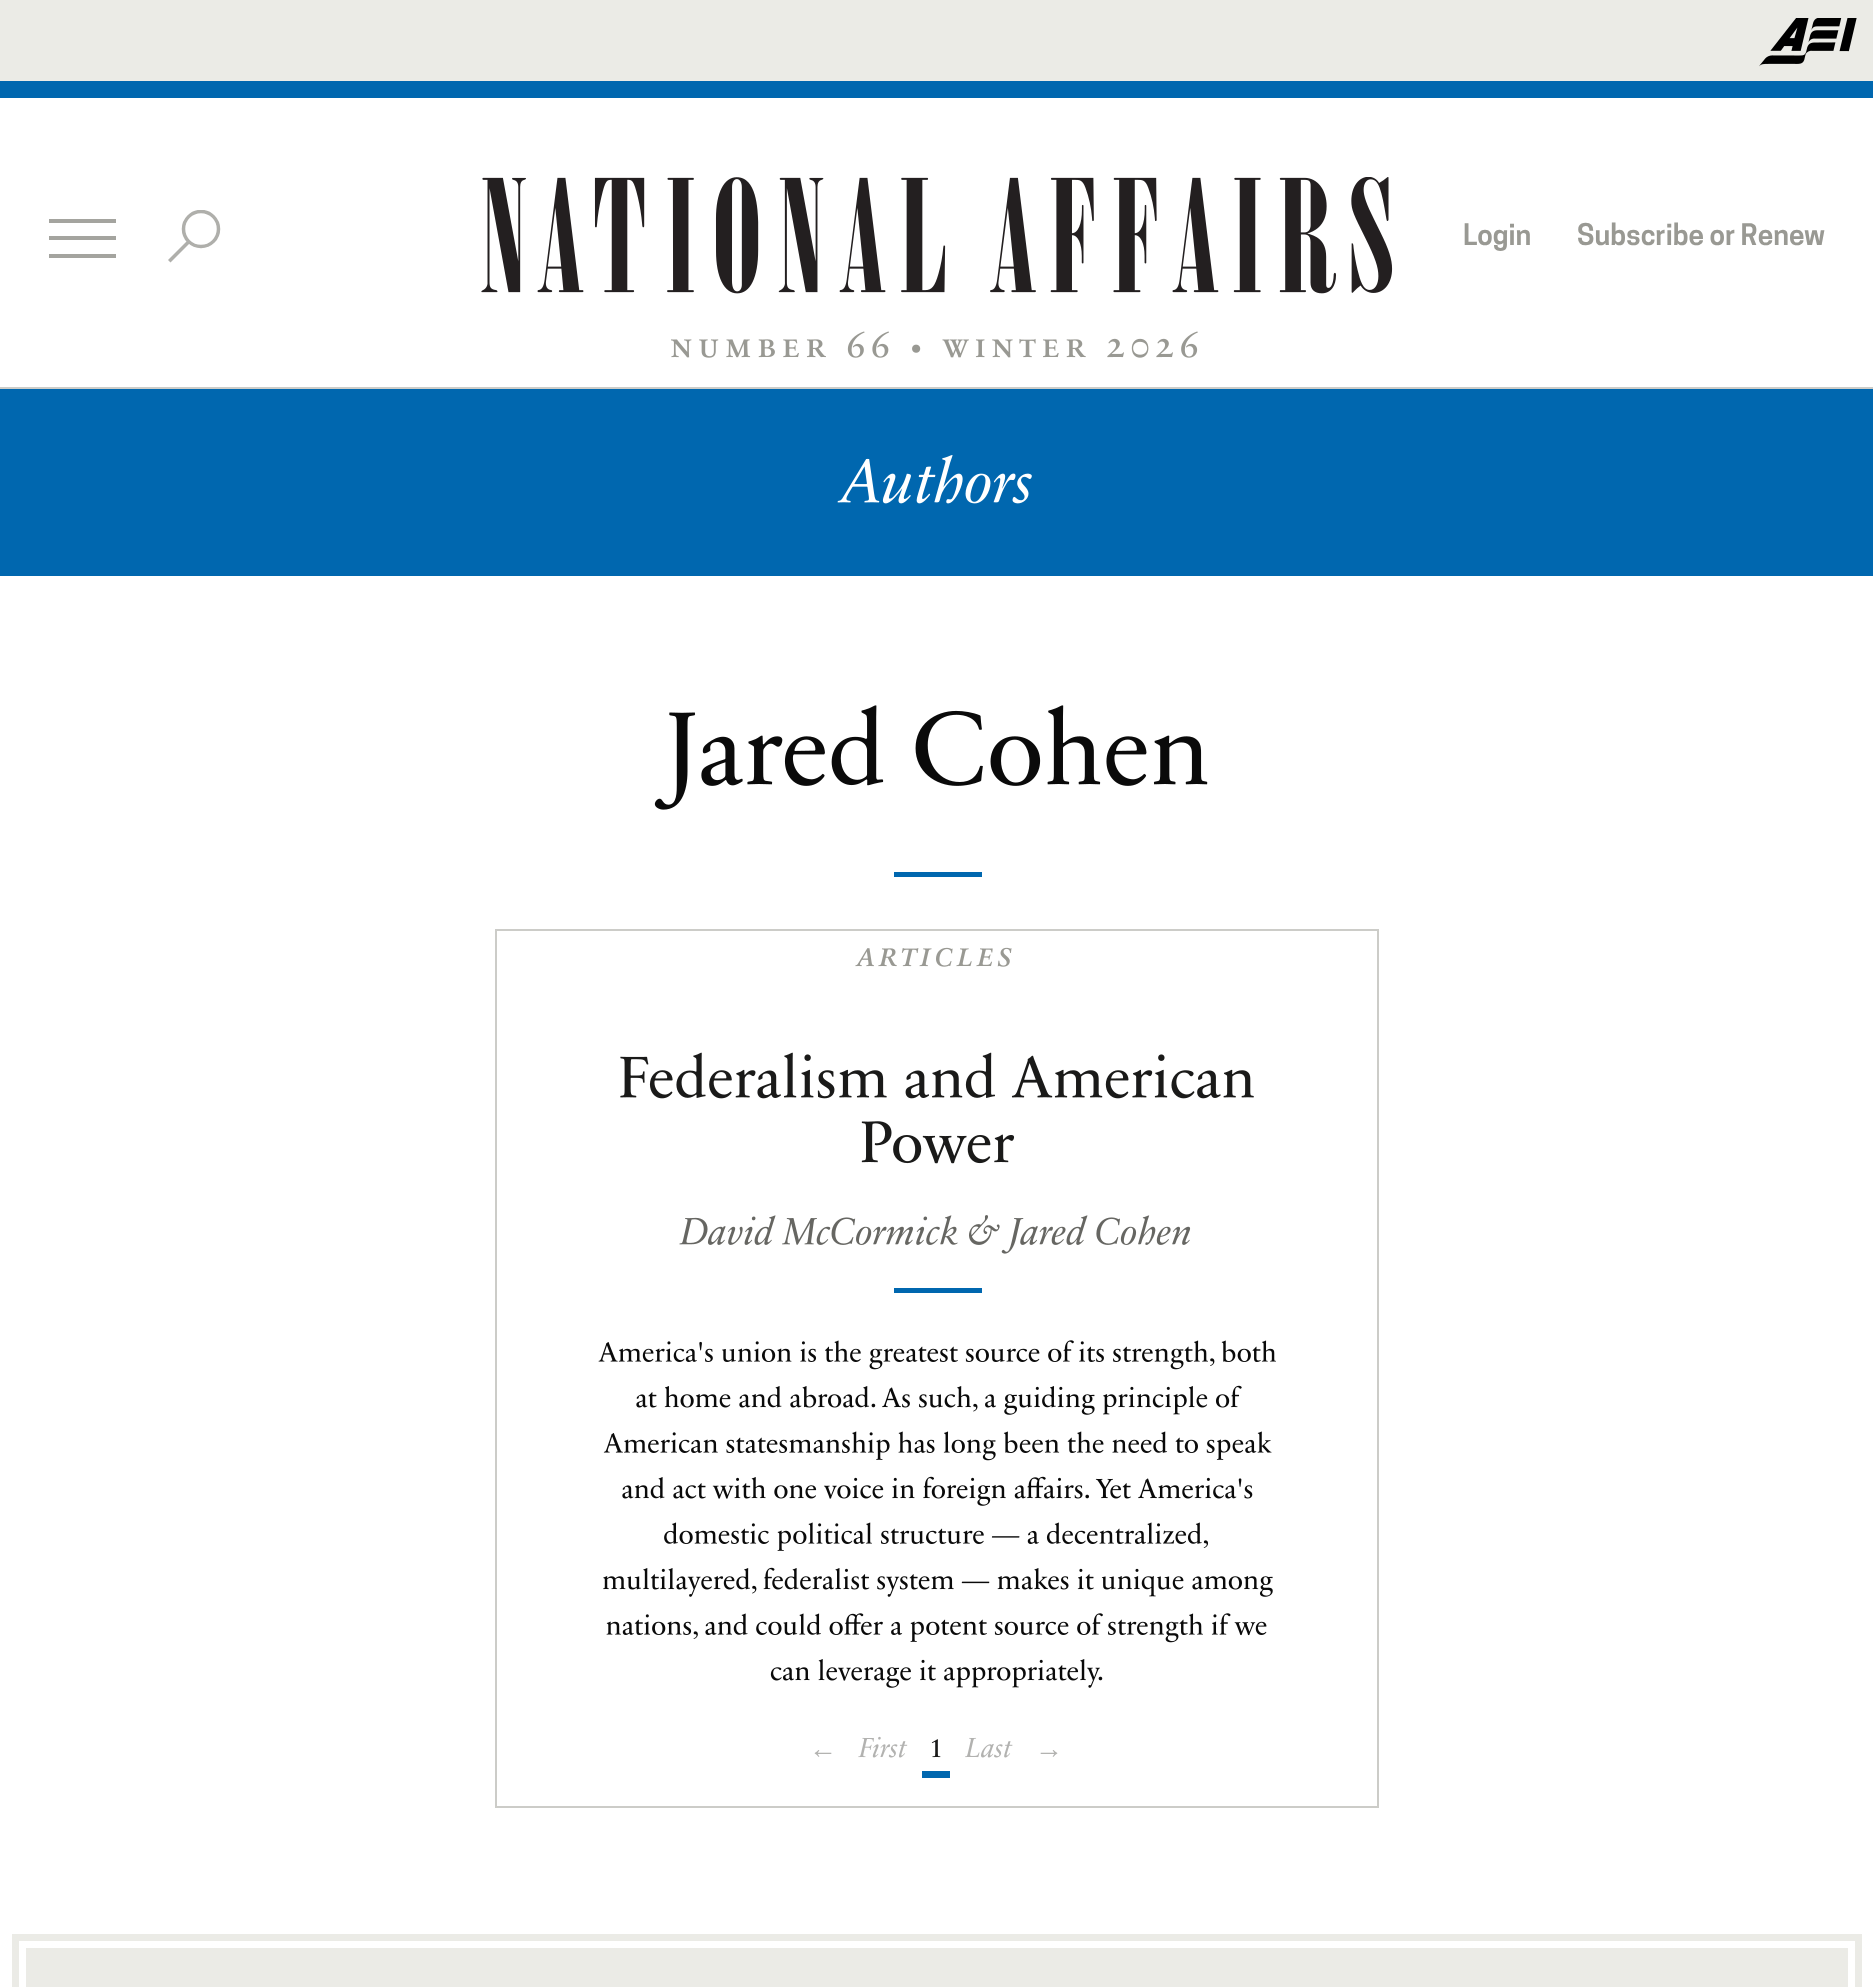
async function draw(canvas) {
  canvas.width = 1873;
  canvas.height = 1987;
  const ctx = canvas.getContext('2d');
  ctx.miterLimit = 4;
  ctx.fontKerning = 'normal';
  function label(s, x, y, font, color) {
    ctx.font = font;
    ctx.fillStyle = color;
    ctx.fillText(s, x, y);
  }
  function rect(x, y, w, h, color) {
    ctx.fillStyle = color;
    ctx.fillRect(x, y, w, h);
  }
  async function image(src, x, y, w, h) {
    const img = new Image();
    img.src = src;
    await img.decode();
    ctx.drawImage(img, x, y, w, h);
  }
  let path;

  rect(0, 0, 1873, 1987, '#fff');
  rect(0, 0, 1873, 81, '#ebebe6');
  await image('assets/img1.png', 1759, 18, 98, 49);
  rect(0, 81, 1873, 17, '#0067af');
  rect(0, 387, 1873, 2, '#ccccc8');
  rect(49, 219, 67, 4, '#a4a49f');
  rect(49, 236, 67, 4, '#a4a49f');
  rect(49, 254, 67, 4, '#a4a49f');
  ctx.fillStyle = '#afafab';
  path = new Path2D('M170.5 262.5L168 260L190 238L192.5 240.5Z');
  ctx.fill(path, 'evenodd');
  ctx.fillStyle = '#fff';
  ctx.beginPath();
  ctx.arc(201, 229, 17.5, 0, 2 * Math.PI);
  ctx.fill();
  ctx.save();
  ctx.beginPath();
  ctx.rect(166, 210, 56, 56);
  ctx.clip();
  ctx.beginPath();
  ctx.arc(201, 229, 17.5, 0, 2 * Math.PI);
  ctx.strokeStyle = '#afafab';
  ctx.lineWidth = 3.5;
  ctx.stroke();
  ctx.restore();
  await image('assets/img2.png', 481, 177, 912, 117);
  await image('assets/img3.png', 671, 331, 218, 27);
  await image('assets/img4.png', 912, 344, 9, 9);
  await image('assets/img5.png', 942, 331, 256, 27);
  label('Login', 1463, 245, '600 28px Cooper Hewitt', '#999993');
  label('Subscribe or Renew', 1577, 245, '600 28px Cooper Hewitt', '#999993');
  rect(0, 389, 1873, 187, '#0067af');
  await image('assets/img6.png', 837, 455, 195, 49);
  await image('assets/img7.png', 654, 705, 554, 105);
  rect(894, 872, 88, 5, '#0067af');
  ctx.strokeStyle = '#ccccc8';
  ctx.lineWidth = 2;
  ctx.strokeRect(496, 930, 882, 877);
  await image('assets/img8.png', 855, 947, 157, 20);
  await image('assets/img9.png', 620, 1052, 634, 47);
  await image('assets/img10.png', 861, 1121, 154, 43);
  await image('assets/img11.png', 679, 1215, 279, 30);
  await image('assets/img12.png', 969, 1215, 31, 30);
  await image('assets/img13.png', 1001, 1215, 190, 39);
  rect(894, 1288, 88, 5, '#0067af');
  await image('assets/img14.png', 598, 1340, 678, 30);
  await image('assets/img15.png', 636, 1385, 606, 30);
  await image('assets/img16.png', 603, 1431, 669, 30);
  await image('assets/img17.png', 622, 1476, 631, 30);
  await image('assets/img18.png', 664, 1522, 544, 29);
  await image('assets/img19.png', 603, 1567, 670, 30);
  await image('assets/img20.png', 606, 1613, 661, 30);
  await image('assets/img21.png', 770, 1659, 333, 29);
  label('←', 809, 1758, 'bold 28px Liberation Serif', '#b3b3b1');
  await image('assets/img22.png', 858, 1736, 50, 22);
  rect(922, 1771, 28, 7, '#0067af');
  await image('assets/img23.png', 931, 1739, 10, 19);
  await image('assets/img24.png', 965, 1737, 48, 21);
  label('→', 1035, 1758, 'bold 28px Liberation Serif', '#b3b3b1');
  ctx.strokeStyle = '#ebebe6';
  ctx.lineWidth = 14;
  ctx.strokeRect(19, 1941, 1836, 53);
  ctx.strokeStyle = '#fff';
  ctx.lineWidth = 7;
  ctx.strokeRect(22.5, 1944.5, 1829, 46);
  rect(26, 1948, 1822, 39, '#ebebe6');
}

draw(document.querySelector('canvas'));
